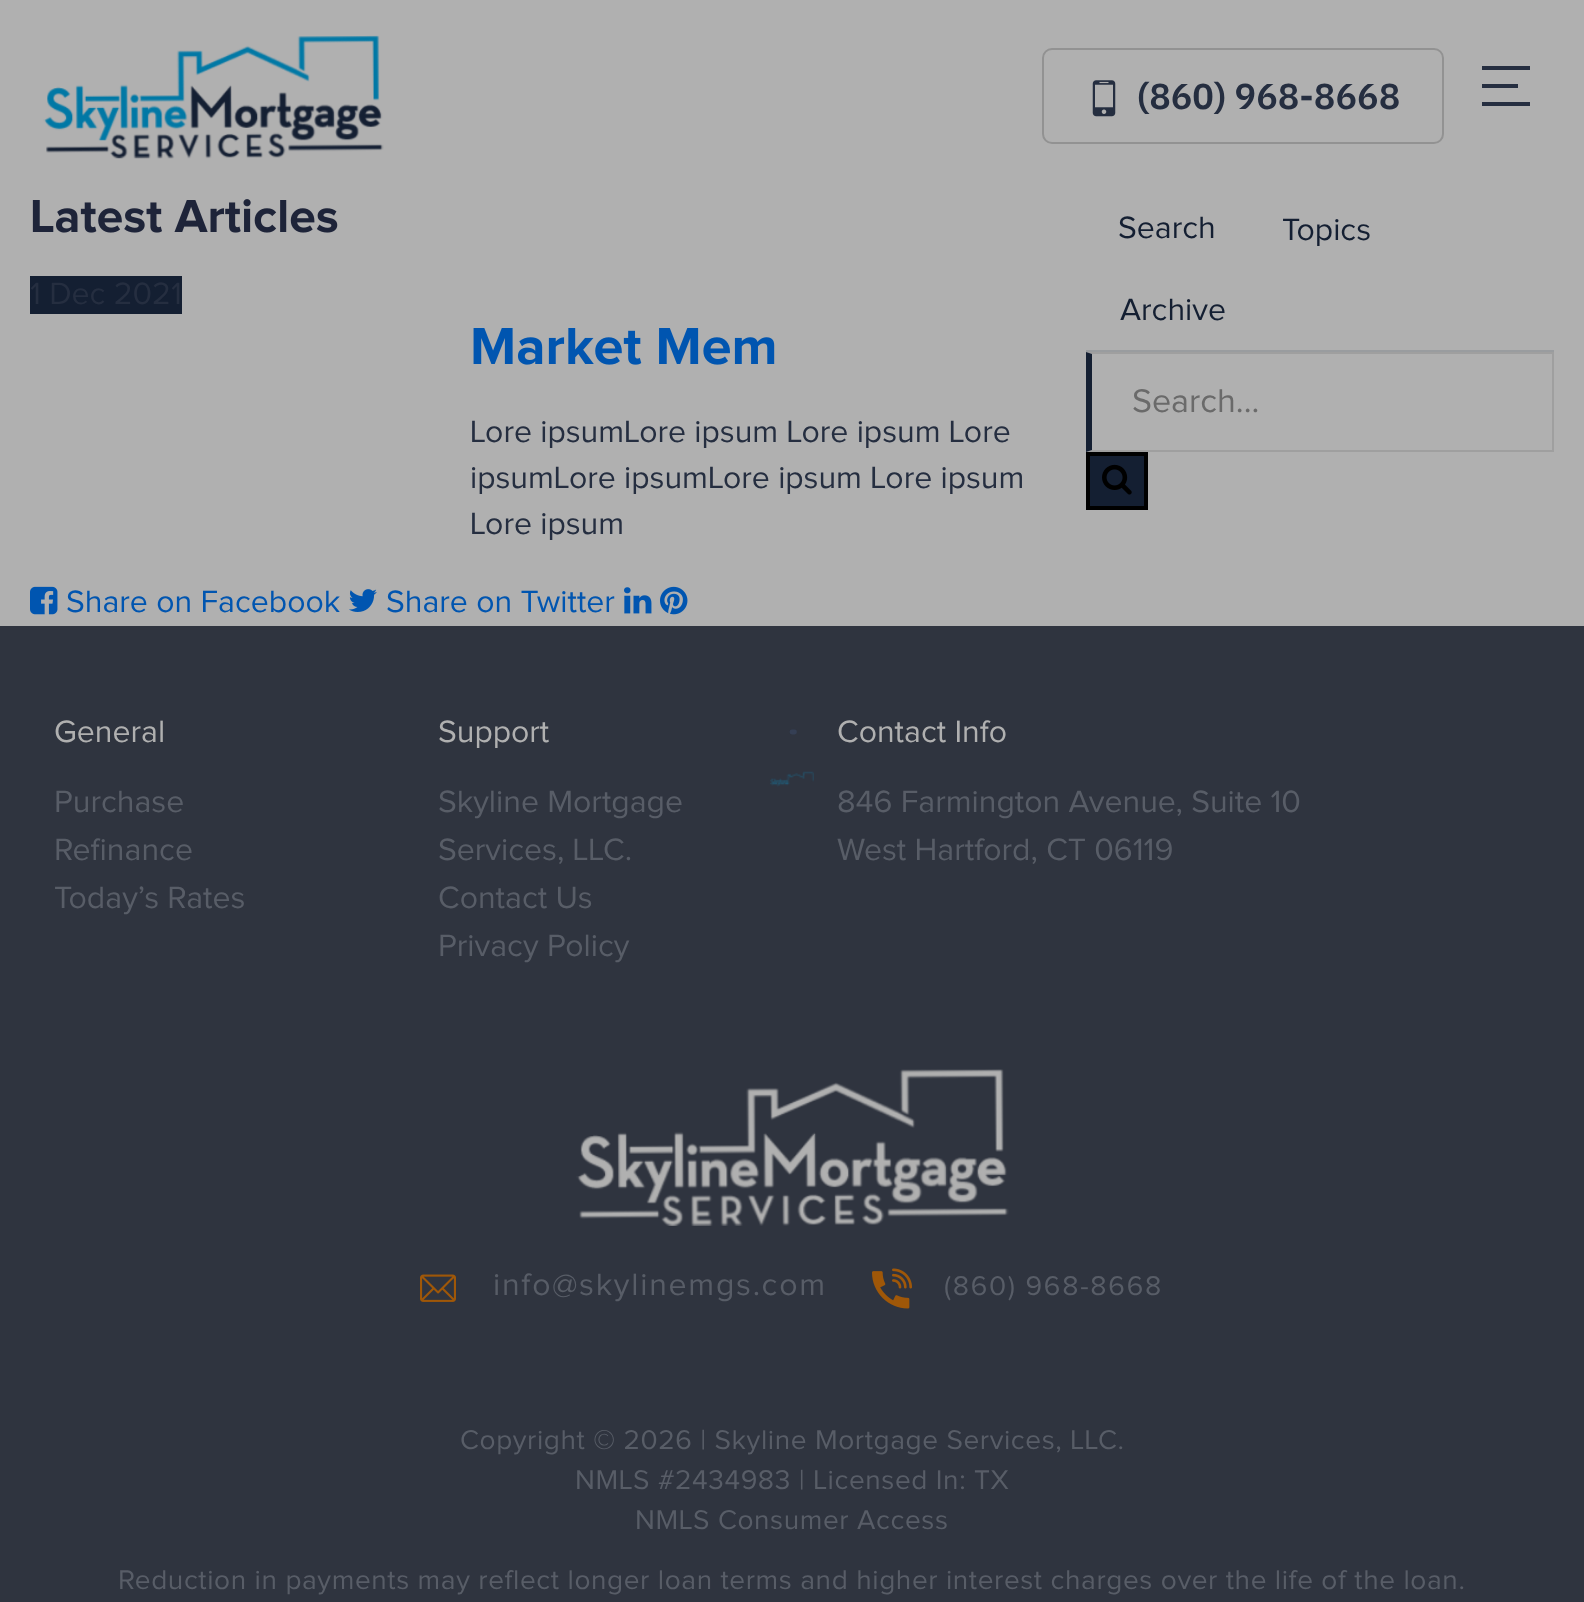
async function draw(canvas) {
  canvas.width = 1584;
  canvas.height = 1602;
  const ctx = canvas.getContext('2d');
  ctx.miterLimit = 4;
  ctx.fontKerning = 'normal';
  function label(s, x, y, font, color) {
    ctx.font = font;
    ctx.fillStyle = color;
    ctx.fillText(s, x, y);
  }
  function rect(x, y, w, h, color) {
    ctx.fillStyle = color;
    ctx.fillRect(x, y, w, h);
  }
  async function image(src, x, y, w, h) {
    const img = new Image();
    img.src = src;
    await img.decode();
    ctx.drawImage(img, x, y, w, h);
  }
  let path;

  rect(0, 0, 1584, 1602, '#b0b0b0');
  await image('assets/img1.png', 43, 35, 341, 124);
  ctx.beginPath();
  ctx.roundRect(1043, 49, 400, 94, 9);
  ctx.strokeStyle = '#929292';
  ctx.lineWidth = 2;
  ctx.stroke();
  await image('assets/img2.png', 1092, 80, 24, 37);
  label('(860) 968-8668', 1137, 109, '600 36px IBM Plex Sans', '#252e40');
  rect(1482, 66, 48, 4, '#252e40');
  rect(1482, 84, 36, 4, '#252e40');
  rect(1482, 102, 48, 4, '#252e40');
  await image('assets/img3.png', 32, 199, 306, 34);
  rect(30, 276, 152, 38, '#141f32');
  label('1 Dec 2021', 30, 304, '32px Proxima Nova', '#252e40');
  await image('assets/img4.png', 473, 328, 302, 37);
  label('Lore ipsumLore ipsum Lore ipsum Lore', 470, 442, '32px Proxima Nova', '#252e40');
  label('ipsumLore ipsumLore ipsum Lore ipsum', 470, 488, '32px Proxima Nova', '#252e40');
  label('Lore ipsum', 470, 534, '32px Proxima Nova', '#252e40');
  await image('assets/img5.png', 30, 586, 28, 29);
  label('Share on Facebook', 66, 612, '32px Proxima Nova', '#0055b0');
  await image('assets/img6.png', 349, 589, 28, 23);
  label('Share on Twitter', 386, 612, '32px Proxima Nova', '#0055b0');
  await image('assets/img7.png', 624, 587, 28, 27);
  await image('assets/img8.png', 660, 586, 28, 29);
  rect(1086, 350, 468, 2, '#999c9f');
  label('Search', 1118, 238, '32px Proxima Nova', '#141f32');
  label('Topics', 1282, 240, '32px Proxima Nova', '#141f32');
  label('Archive', 1120, 320, '32px Proxima Nova', '#141f32');
  ctx.fillStyle = '#9f9f9f';
  path = new Path2D('M1086 352H1554L1552 354H1092Z');
  ctx.fill(path);
  rect(1552, 352, 2, 100, '#9f9f9f');
  path = new Path2D('M1554 452H1086L1092 450H1552Z');
  ctx.fill(path);
  ctx.fillStyle = '#141f32';
  path = new Path2D('M1086 452V352L1092 354V450Z');
  ctx.fill(path);
  label('Search...', 1132, 412, '34px Proxima Nova', '#6a6a6a');
  ctx.fillStyle = '#141f32';
  ctx.beginPath();
  ctx.rect(1088, 454, 58, 54);
  ctx.fill();
  ctx.strokeStyle = '#000';
  ctx.lineWidth = 4;
  ctx.stroke();
  await image('assets/img9.png', 1102, 464, 30, 31);
  rect(0, 626, 1584, 976, '#2f343f');
  label('General', 54, 742, '32px Proxima Nova', '#b0b0b0');
  label('Purchase', 54, 812, '32px Proxima Nova', '#585d67');
  label('Refinance', 54, 860, '32px Proxima Nova', '#585d67');
  label('Today’s Rates', 54, 908, '32px Proxima Nova', '#585d67');
  label('Support', 438, 742, '32px Proxima Nova', '#b0b0b0');
  label('Skyline Mortgage', 438, 812, '32px Proxima Nova', '#585d67');
  label('Services, LLC.', 438, 860, '32px Proxima Nova', '#585d67');
  label('Contact Us', 438, 908, '32px Proxima Nova', '#585d67');
  label('Privacy Policy', 438, 956, '32px Proxima Nova', '#585d67');
  label('Contact Info', 837, 742, '32px Proxima Nova', '#b0b0b0');
  label('846 Farmington Avenue, Suite 10', 837, 812, '32px Proxima Nova', '#585d67');
  label('West Hartford, CT 06119', 837, 860, '32px Proxima Nova', '#585d67');
  await image('assets/img10.png', 576, 1069, 433, 157);
  await image('assets/img11.png', 420, 1274, 36, 28);
  ctx.letterSpacing = '1.75px';
  label('info@skylinemgs.com', 493, 1295, '32px Proxima Nova', '#585d67');
  await image('assets/img12.png', 872, 1268, 40, 41);
  label('(860) 968-8668', 944, 1295, '28px Proxima Nova', '#585d67');
  ctx.letterSpacing = '0.6px';
  label('Copyright © 2026 | Skyline Mortgage Services, LLC.', 460, 1449, '28px Proxima Nova', '#585d67');
  label('NMLS #2434983 | Licensed In: TX', 575, 1489, '28px Proxima Nova', '#585d67');
  label('NMLS Consumer Access', 635, 1529, '28px Proxima Nova', '#585d67');
  label('Reduction in payments may reflect longer loan terms and higher interest charges over the life of the loan.', 118, 1589, '28px Proxima Nova', '#585d67');
  path = new Path2D('M792 732H794.5');
  ctx.strokeStyle = '#353f54';
  ctx.lineWidth = 4.8;
  ctx.lineCap = 'round';
  ctx.stroke(path);
  await image('assets/img13.png', 770, 771, 44, 16);
}

draw(document.querySelector('canvas'));
